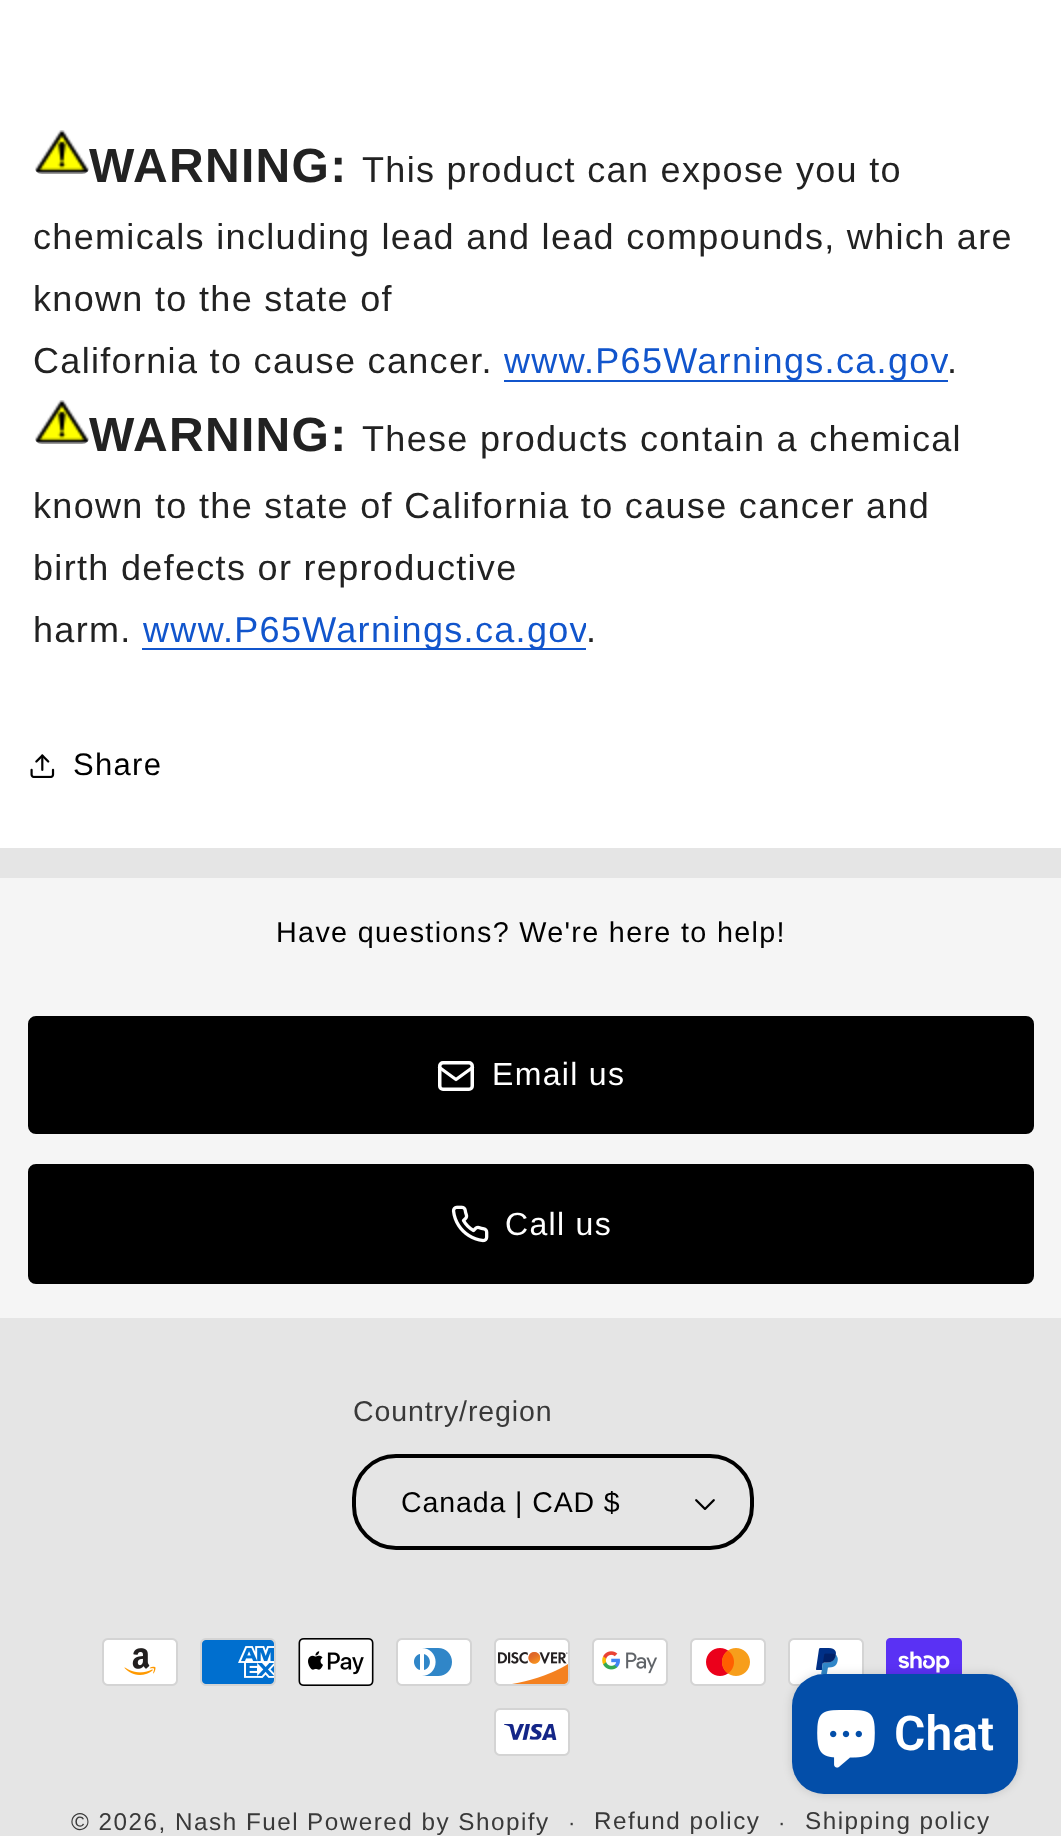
async function draw(canvas) {
  canvas.width = 1061;
  canvas.height = 1836;
  const ctx = canvas.getContext('2d');
  ctx.miterLimit = 4;
  ctx.fontKerning = 'normal';
  function label(s, x, y, font, color) {
    ctx.font = font;
    ctx.fillStyle = color;
    ctx.fillText(s, x, y);
  }
  function rect(x, y, w, h, color) {
    ctx.fillStyle = color;
    ctx.fillRect(x, y, w, h);
  }
  function roundedRect(x, y, w, h, r, color) {
    ctx.fillStyle = color;
    ctx.beginPath();
    ctx.roundRect(x, y, w, h, r);
    ctx.fill();
  }
  async function image(src, x, y, w, h) {
    const img = new Image();
    img.src = src;
    await img.decode();
    ctx.drawImage(img, x, y, w, h);
  }
  let path;

  rect(0, 0, 1061, 1836, '#e5e5e5');
  rect(0, 0, 1061, 848, '#fff');
  await image('assets/img1.png', 35, 130, 54, 44);
  ctx.letterSpacing = '1.32px';
  label('WARNING:', 89, 182, 'bold 48px Liberation Sans', '#222');
  label('This product can expose you to', 362, 182, '36px Liberation Sans', '#222');
  label('chemicals including lead and lead compounds, which are', 33, 249, '36px Liberation Sans', '#222');
  label('known to the state of', 33, 311, '36px Liberation Sans', '#222');
  label('California to cause cancer.', 33, 373, '36px Liberation Sans', '#222');
  rect(504, 380, 444, 2, '#15c');
  label('www.P65Warnings.ca.gov', 504, 373, '36px Liberation Sans', '#15c');
  label('.', 947, 373, '36px Liberation Sans', '#222');
  rect(948, 354, 1, 2, '#fff');
  await image('assets/img1.png', 35, 400, 54, 44);
  label('WARNING:', 89, 451, 'bold 48px Liberation Sans', '#222');
  label('These products contain a chemical', 362, 451, '36px Liberation Sans', '#222');
  label('known to the state of California to cause cancer and', 33, 518, '36px Liberation Sans', '#222');
  label('birth defects or reproductive', 33, 580, '36px Liberation Sans', '#222');
  label('harm.', 33, 642, '36px Liberation Sans', '#222');
  rect(142, 648, 444, 2, '#15c');
  label('www.P65Warnings.ca.gov', 143, 642, '36px Liberation Sans', '#15c');
  label('.', 586, 642, '36px Liberation Sans', '#222');
  rect(586, 623, 2, 4, '#fff');
  await image('assets/img2.png', 30, 754, 25, 24);
  label('Share', 73, 775, '31px Liberation Sans', '#000');
  rect(0, 878, 1061, 440, '#f5f5f5');
  label('Have questions? We\'re here to help!', 276, 942, '28.75px Liberation Sans', '#000');
  ctx.beginPath();
  ctx.roundRect(30, 1018, 1002, 114, 6);
  ctx.fill();
  ctx.strokeStyle = '#000';
  ctx.lineWidth = 4;
  ctx.stroke();
  ctx.beginPath();
  ctx.roundRect(439.75, 1062.75, 32.5, 26.5, 3.25);
  ctx.strokeStyle = '#fff';
  ctx.lineWidth = 3.5;
  ctx.stroke();
  path = new Path2D('M439.5 1067.5L456 1079.5L472.5 1067.5');
  ctx.lineWidth = 3.3;
  ctx.lineCap = 'round';
  ctx.lineJoin = 'round';
  ctx.stroke(path);
  label('Email us', 492, 1085, '32px Liberation Sans', '#fff');
  ctx.fillStyle = '#000';
  ctx.beginPath();
  ctx.roundRect(30, 1166, 1002, 116, 6);
  ctx.fill();
  ctx.strokeStyle = '#000';
  ctx.lineWidth = 4;
  ctx.lineJoin = 'miter';
  ctx.stroke();
  await image('assets/img3.png', 451, 1205, 38, 38);
  label('Call us', 505, 1235, '32px Liberation Sans', '#fff');
  ctx.letterSpacing = '0.9px';
  label('Country/region', 353, 1421, '28.5px Liberation Sans', '#393939');
  await image('assets/img4.png', 695, 1499, 20, 11);
  ctx.beginPath();
  ctx.roundRect(354, 1456, 398, 92, 42);
  ctx.stroke();
  label('Canada | CAD $', 401, 1512, '28.5px Liberation Sans', '#000');
  await image('assets/img5.png', 102, 1638, 76, 48);
  await image('assets/img6.png', 200, 1638, 76, 48);
  await image('assets/img7.png', 298, 1638, 76, 48);
  await image('assets/img8.png', 396, 1638, 76, 48);
  await image('assets/img9.png', 494, 1638, 76, 48);
  await image('assets/img10.png', 592, 1638, 76, 48);
  await image('assets/img11.png', 690, 1638, 76, 48);
  await image('assets/img12.png', 788, 1638, 76, 48);
  await image('assets/img13.png', 886, 1638, 76, 36);
  await image('assets/img14.png', 494, 1708, 76, 48);
  ctx.letterSpacing = '1.5px';
  label('© 2026, Nash Fuel', 71, 1830, '24.25px Liberation Sans', '#393939');
  label('Powered by Shopify', 307, 1830, '24.25px Liberation Sans', '#393939');
  label('·', 568, 1830, '22px Liberation Sans', '#393939');
  label('Refund policy', 594, 1829, '24.25px Liberation Sans', '#393939');
  label('·', 778, 1830, '22px Liberation Sans', '#393939');
  label('Shipping policy', 805, 1829, '24.25px Liberation Sans', '#393939');
  ctx.fillStyle = '#00000026';
  ctx.filter = 'blur(5px)';
  ctx.beginPath();
  ctx.roundRect(792, 1674, 226, 120, 32);
  ctx.fill();
  ctx.filter = 'none';
  roundedRect(792, 1674, 226, 120, 32, '#034ea9');
  await image('assets/img15.png', 817, 1710, 58, 58);
  ctx.letterSpacing = '0px';
  label('Chat', 894, 1750, '600 48px Roboto', '#fff');
}

draw(document.querySelector('canvas'));
